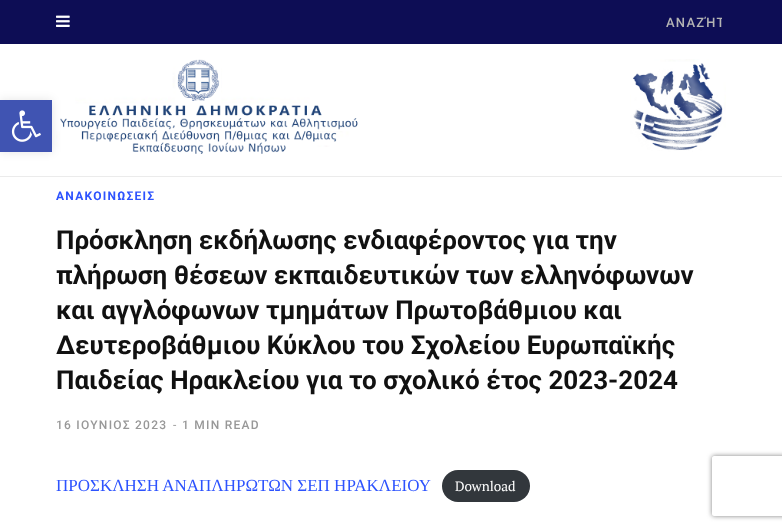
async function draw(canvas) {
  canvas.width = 782;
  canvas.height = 530;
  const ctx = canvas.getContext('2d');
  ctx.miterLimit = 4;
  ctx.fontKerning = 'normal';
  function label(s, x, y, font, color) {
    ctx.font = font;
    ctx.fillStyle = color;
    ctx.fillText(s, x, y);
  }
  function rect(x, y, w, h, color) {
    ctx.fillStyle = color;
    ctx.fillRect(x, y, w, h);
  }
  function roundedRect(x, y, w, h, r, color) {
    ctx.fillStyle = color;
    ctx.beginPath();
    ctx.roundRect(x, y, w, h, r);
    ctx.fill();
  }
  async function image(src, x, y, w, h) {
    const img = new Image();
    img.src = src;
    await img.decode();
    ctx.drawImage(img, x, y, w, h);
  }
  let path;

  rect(0, 0, 782, 530, '#fff');
  await image('assets/img3.png', 56, 59, 670, 95);
  ctx.fillStyle = '#0000001a';
  ctx.filter = 'blur(5px)';
  ctx.beginPath();
  ctx.rect(0, 100, 52, 52);
  ctx.fill();
  ctx.filter = 'none';
  rect(0, 100, 52, 52, '#4054b2');
  await image('assets/img1.png', 11, 110, 30, 32);
  rect(0, 176, 782, 1, '#ebebeb');
  rect(0, 0, 782, 44, '#0d0d55');
  await image('assets/img2.png', 56, 15, 14, 12);
  ctx.save();
  ctx.beginPath();
  ctx.rect(666, 15, 56, 15);
  ctx.clip();
  ctx.letterSpacing = '1.25px';
  label('ΑΝΑΖΉΤ', 666, 27, '500 13px Roboto', '#b4b4b4');
  ctx.restore();
  ctx.letterSpacing = '1.25px';
  label('ΑΝΑΚΟΙΝΩΣΕΙΣ', 56, 200, 'bold 12px Roboto', '#2d53fe');
  ctx.letterSpacing = '0px';
  label('Πρόσκληση εκδήλωσης ενδιαφέροντος για την', 56, 249, 'bold 26px Roboto', '#111');
  label('πλήρωση θέσεων εκπαιδευτικών των ελληνόφωνων', 56, 284, 'bold 26px Roboto', '#111');
  label('και αγγλόφωνων τμημάτων Πρωτοβάθμιου και', 56, 319, 'bold 26px Roboto', '#111');
  label('Δευτεροβάθμιου Κύκλου του Σχολείου Ευρωπαϊκής', 56, 354, 'bold 26px Roboto', '#111');
  label('Παιδείας Ηρακλείου για το σχολικό έτος 2023-2024', 56, 389, 'bold 26px Roboto', '#111');
  ctx.letterSpacing = '1.25px';
  label('16 ΙΟΥΝΙΟΣ 2023', 56, 429, '500 12px Roboto', '#989898');
  ctx.letterSpacing = '0px';
  label('-', 173, 429, '12px Roboto', '#989898');
  ctx.letterSpacing = '1.25px';
  label('1 MIN READ', 182, 429, '500 12px Roboto', '#989898');
  ctx.letterSpacing = '0px';
  label('ΠΡΟΣΚΛΗΣΗ ΑΝΑΠΛΗΡΩΤΩΝ ΣΕΠ ΗΡΑΚΛΕΙΟΥ', 56, 491, '17px Liberation Serif', '#2d53fe');
  roundedRect(442, 470, 88, 32, 16, '#32373c');
  label('Download', 455, 491, '13.5px PT Serif', '#fff');
  ctx.save();
  path = new Path2D('M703 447H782V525H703ZM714 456H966C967 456 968 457 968 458V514C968 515 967 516 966 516H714C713 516 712 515 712 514V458C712 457 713 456 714 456Z');
  ctx.clip(path, 'evenodd');
  ctx.fillStyle = '#808080';
  ctx.filter = 'blur(2.5px)';
  ctx.beginPath();
  ctx.roundRect(712, 456, 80, 60, 2);
  ctx.fill();
  ctx.filter = 'none';
  ctx.restore();
}

draw(document.querySelector('canvas'));
